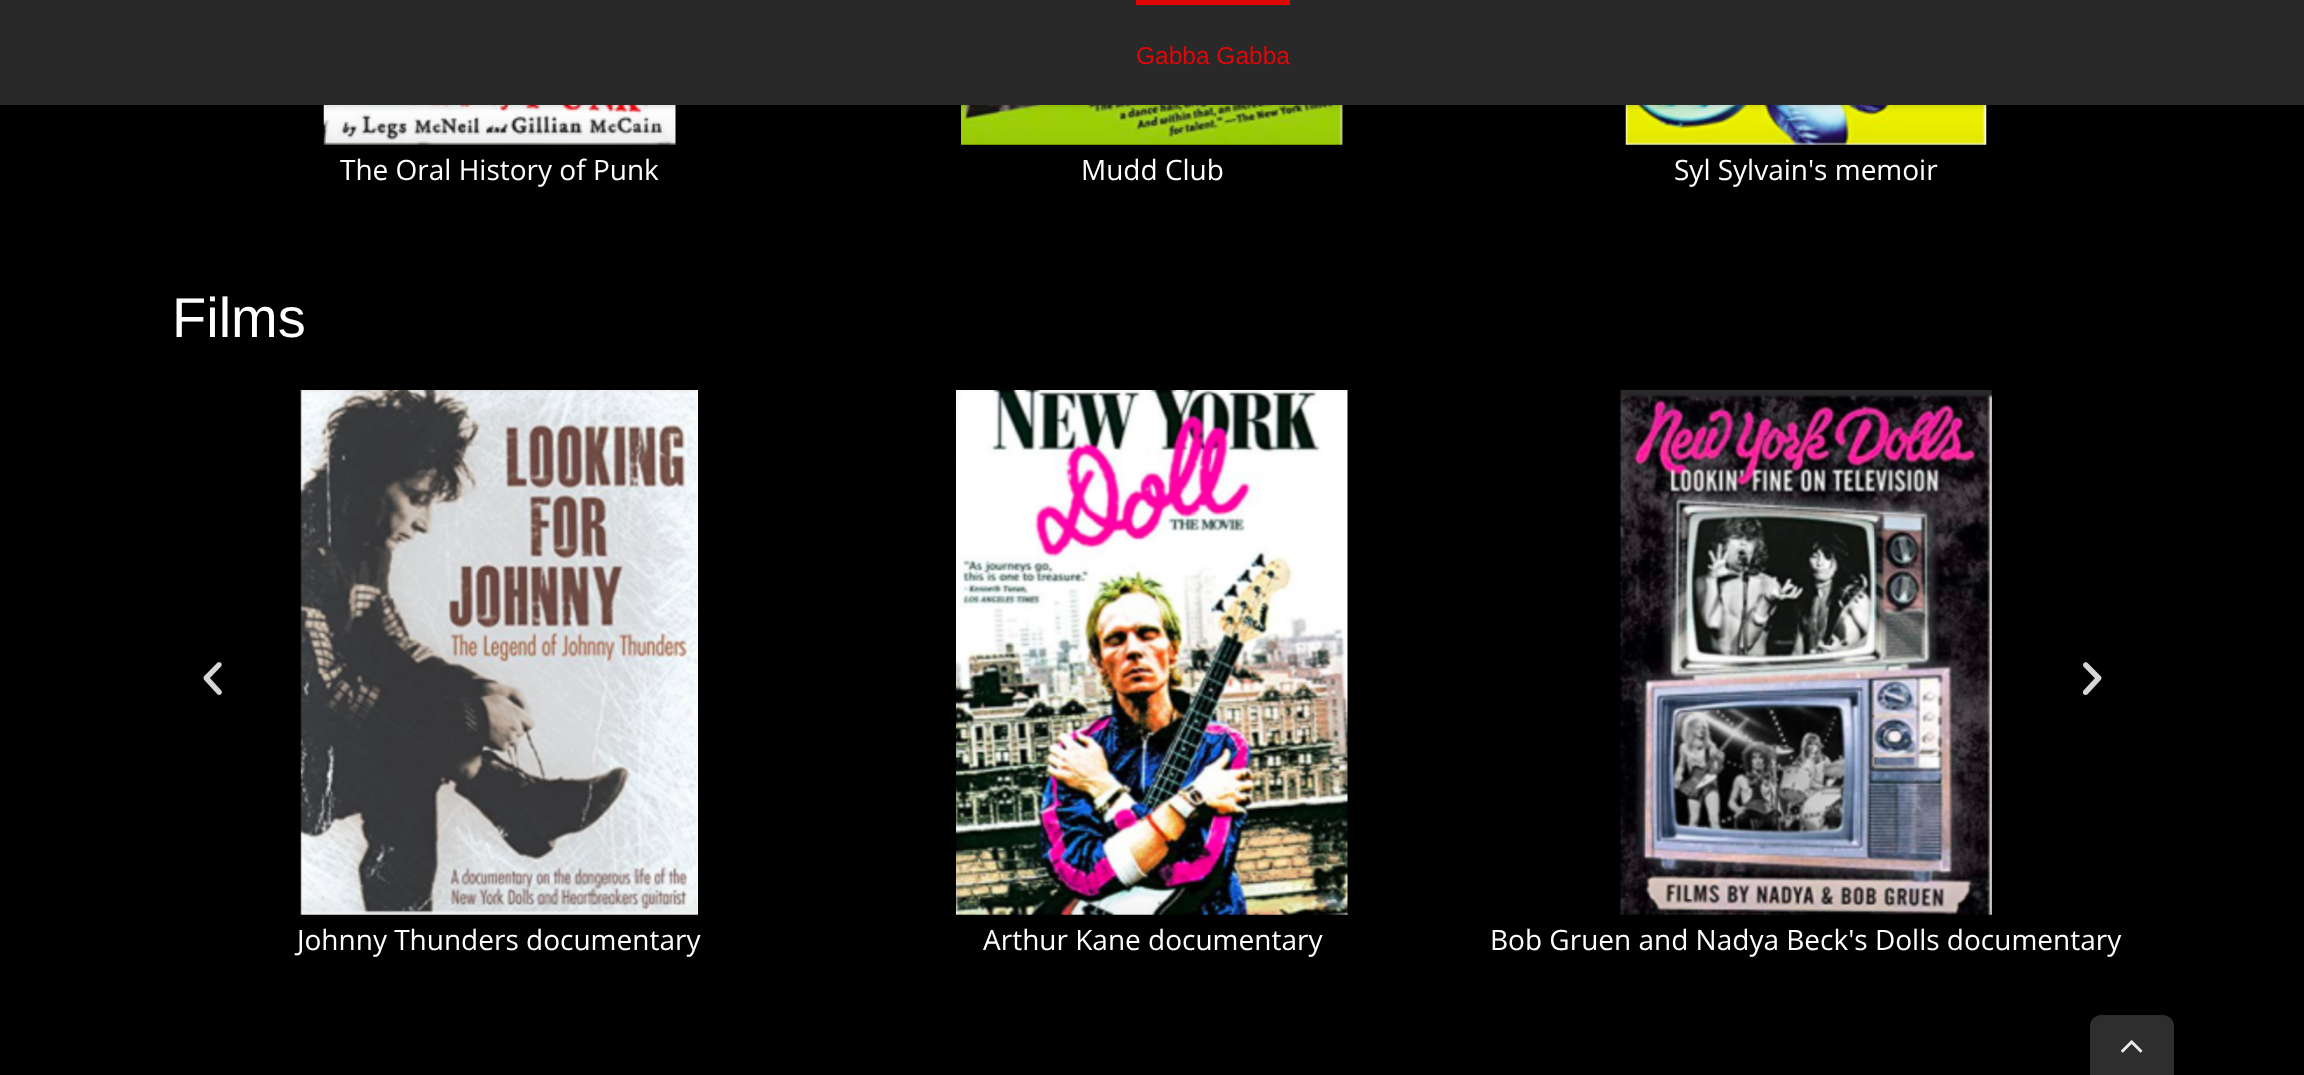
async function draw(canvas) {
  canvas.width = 2304;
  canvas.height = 1075;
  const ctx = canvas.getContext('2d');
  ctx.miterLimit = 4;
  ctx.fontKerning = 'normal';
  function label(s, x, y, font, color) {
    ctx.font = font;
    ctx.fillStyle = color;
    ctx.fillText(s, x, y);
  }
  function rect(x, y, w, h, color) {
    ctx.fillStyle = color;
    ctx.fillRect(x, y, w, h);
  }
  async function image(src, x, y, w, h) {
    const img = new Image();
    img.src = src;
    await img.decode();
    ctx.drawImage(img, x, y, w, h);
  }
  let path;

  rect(0, 0, 2304, 1075, '#000');
  await image('assets/img1.png', 323, 105, 353, 40);
  await image('assets/img2.png', 961, 105, 382, 40);
  await image('assets/img3.png', 1625, 105, 362, 40);
  ctx.fillStyle = '#0000001f';
  ctx.filter = 'blur(2.5px)';
  ctx.beginPath();
  ctx.rect(0, 2, 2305, 105);
  ctx.fill();
  ctx.filter = 'none';
  rect(0, 0, 2304, 105, '#29292a');
  rect(1136, 0, 154, 5, '#e10707');
  label('Gabba Gabba', 1136, 64, '24.5px Liberation Sans', '#e10707');
  label('The Oral History of Punk', 340, 180, '28px Open Sans', '#fff');
  label('Mudd Club', 1081, 180, '28px Open Sans', '#fff');
  label('Syl Sylvain\'s memoir', 1674, 180, '28px Open Sans', '#fff');
  label('Films', 172, 337, '56px Liberation Sans', '#fff');
  await image('assets/img4.png', 203, 662, 19, 33);
  await image('assets/img5.png', 2082, 662, 20, 33);
  await image('assets/img6.png', 300, 390, 398, 525);
  label('Johnny Thunders documentary', 297, 950, '28px Open Sans', '#fff');
  await image('assets/img7.png', 956, 390, 392, 525);
  label('Arthur Kane documentary', 983, 950, '28px Open Sans', '#fff');
  await image('assets/img8.png', 1619, 390, 373, 525);
  label('Bob Gruen and Nadya Beck\'s Dolls documentary', 1490, 950, '28px Open Sans', '#fff');
  ctx.fillStyle = '#2e2e2e';
  path = new Path2D('M2101 1015H2163C2169 1015 2174 1020 2174 1026V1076H2090V1026C2090 1020 2095 1015 2101 1015Z');
  ctx.fill(path);
  await image('assets/img9.png', 2121, 1040, 22, 13);
}

draw(document.querySelector('canvas'));
